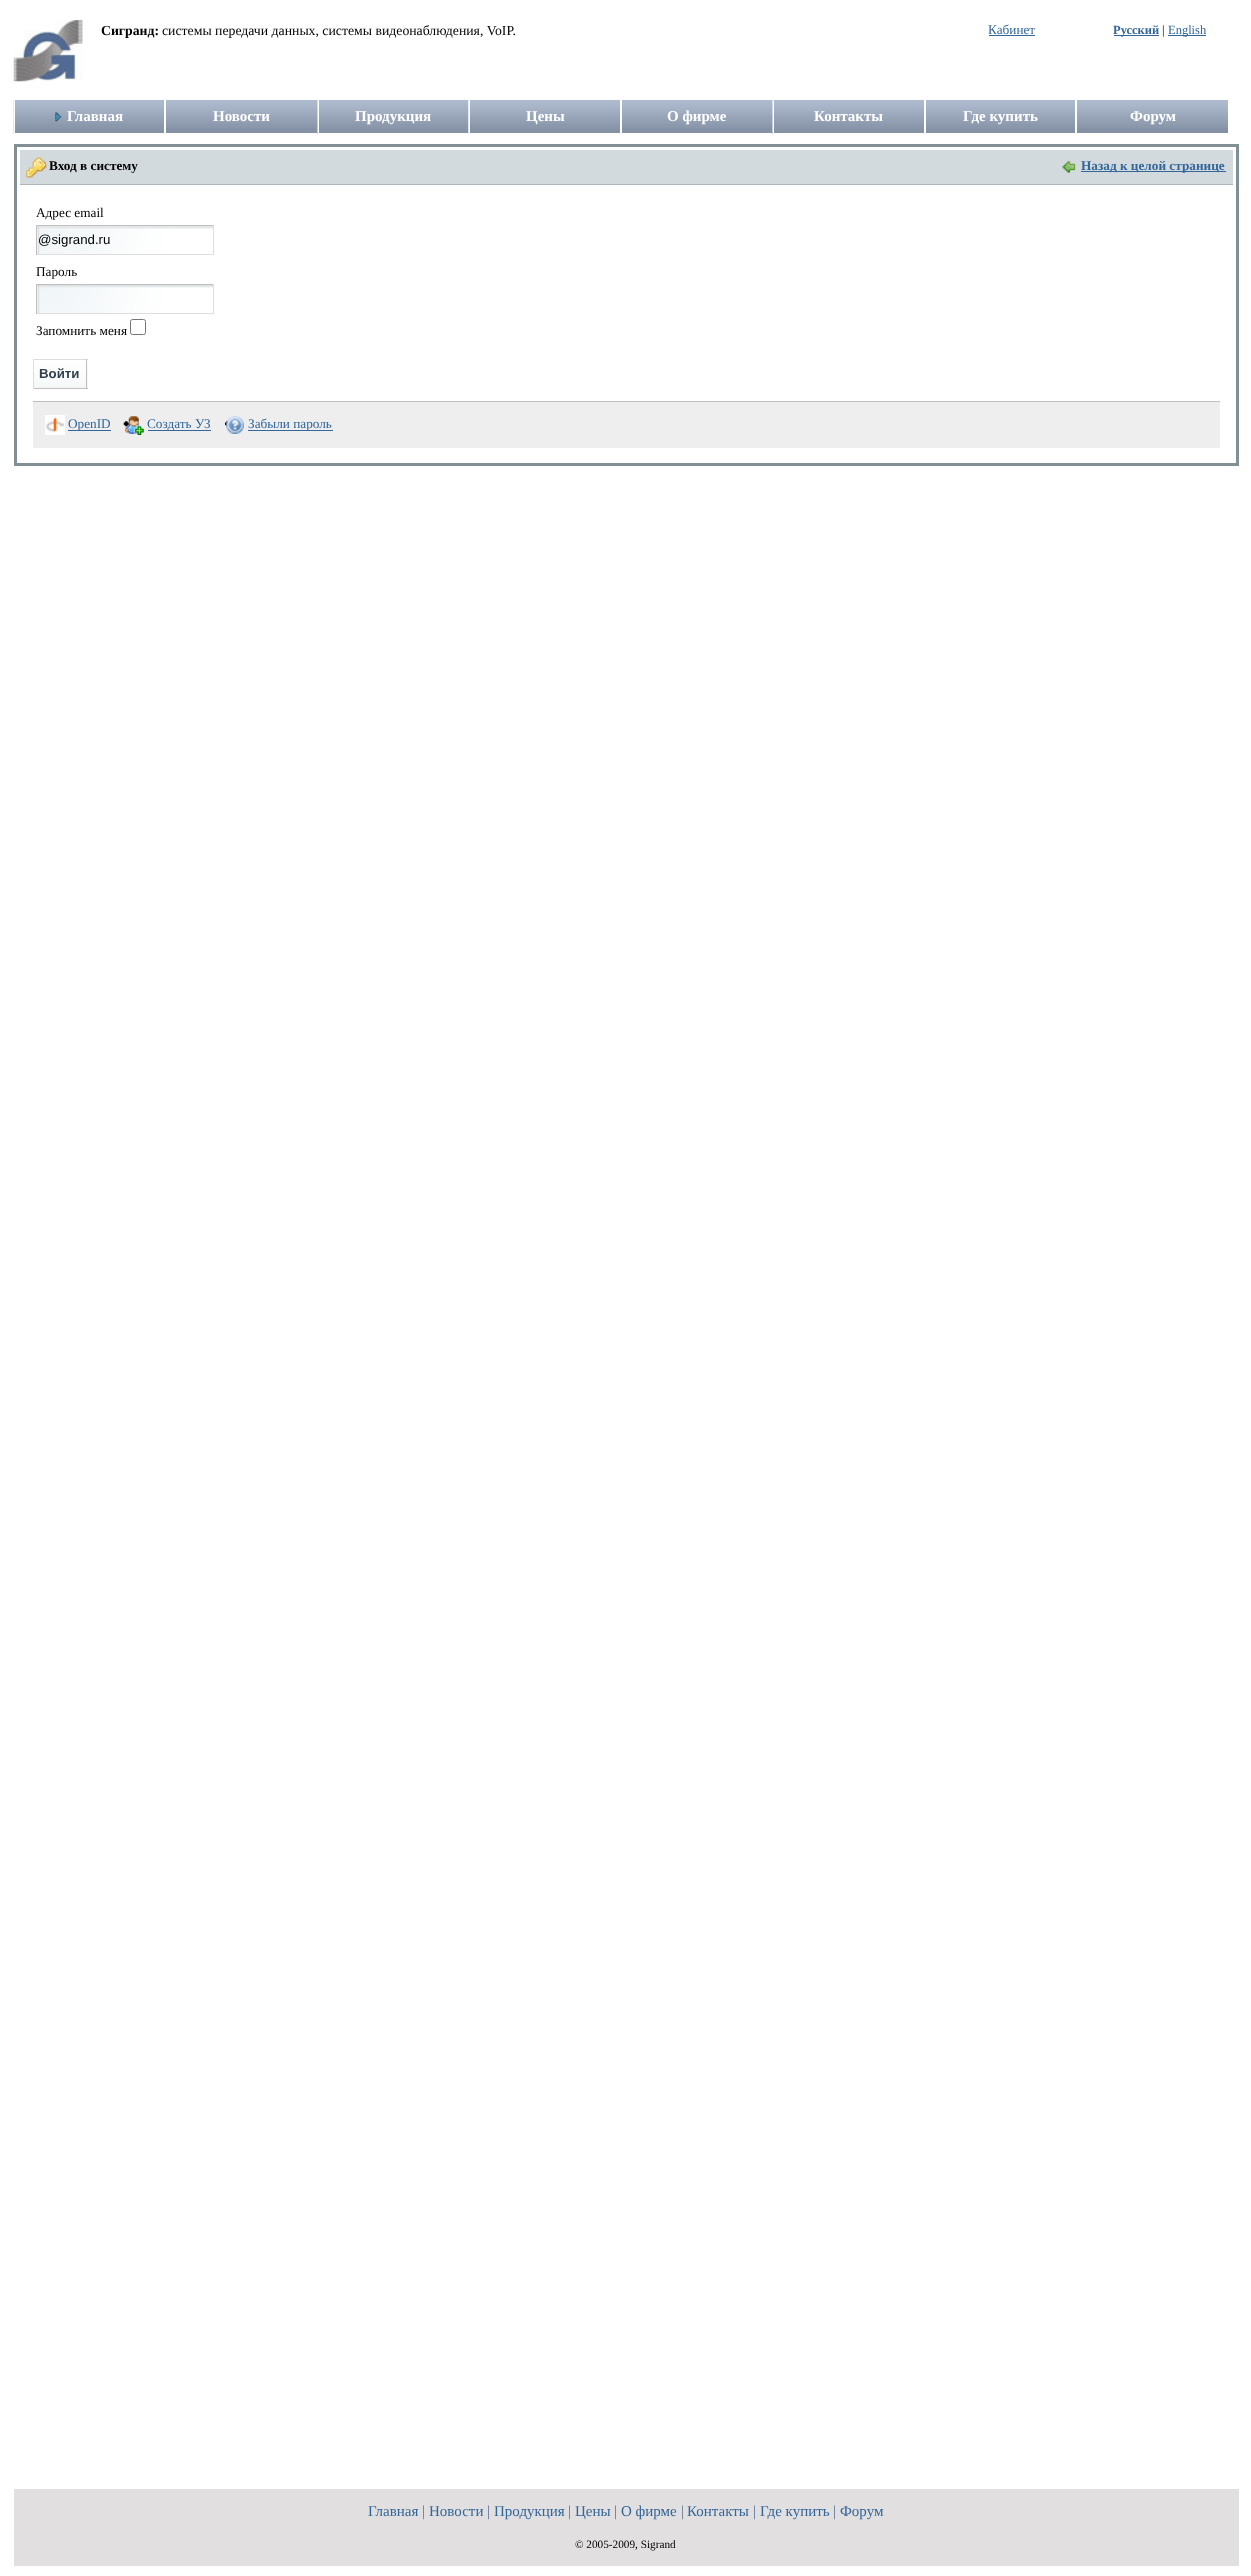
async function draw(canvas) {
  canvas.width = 1251;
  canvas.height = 2576;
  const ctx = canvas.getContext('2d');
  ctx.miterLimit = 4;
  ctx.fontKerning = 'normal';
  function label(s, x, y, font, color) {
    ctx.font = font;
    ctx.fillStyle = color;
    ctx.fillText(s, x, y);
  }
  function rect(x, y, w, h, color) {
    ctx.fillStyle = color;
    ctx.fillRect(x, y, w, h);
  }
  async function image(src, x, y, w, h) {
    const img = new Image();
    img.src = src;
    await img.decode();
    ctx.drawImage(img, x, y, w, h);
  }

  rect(0, 0, 1251, 2576, '#fff');
  await image('assets/img1.png', 13, 20, 70, 62);
  label('Сигранд:', 101, 35, 'bold 13.75px Liberation Serif', '#000');
  label('системы передачи данных, системы видеонаблюдения, VoIP.', 162, 35, '13.75px Liberation Serif', '#000');
  label('Кабинет', 988, 34, '13.25px Liberation Serif', '#369');
  rect(989, 35, 46, 1, '#369');
  rect(1114, 35, 45, 1, '#369');
  label('Русский', 1113, 34, 'bold 12.5px Liberation Serif', '#369');
  label('|', 1162, 34, '12.5px Liberation Serif', '#000');
  rect(1168, 35, 38, 1, '#369');
  label('English', 1168, 34, '12.5px Liberation Serif', '#369');
  await image('assets/img2.png', 13, 100, 151, 34);
  ctx.strokeStyle = '#fff';
  ctx.strokeRect(14.5, 99.5, 150, 34);
  await image('assets/img3.png', 55, 112, 7, 10);
  label('Главная', 67, 121, 'bold 15px Liberation Serif', '#fff');
  rect(166, 128, 151, 5, '#8592a6');
  await image('assets/img4.png', 166, 100, 151, 28);
  label('Новости', 213, 121, 'bold 15px Liberation Serif', '#fff');
  await image('assets/img5.png', 317, 100, 151, 34);
  ctx.strokeRect(318.5, 99.5, 150, 34);
  label('Продукция', 355, 121, 'bold 15px Liberation Serif', '#fff');
  await image('assets/img6.png', 468, 100, 152, 34);
  ctx.strokeRect(469.5, 99.5, 151, 34);
  label('Цены', 526, 121, 'bold 15px Liberation Serif', '#fff');
  rect(622, 128, 150, 5, '#8592a6');
  await image('assets/img7.png', 622, 100, 150, 28);
  label('О фирме', 667, 121, 'bold 15px Liberation Serif', '#fff');
  await image('assets/img8.png', 772, 100, 152, 34);
  ctx.strokeRect(773.5, 99.5, 151, 34);
  label('Контакты', 814, 121, 'bold 15px Liberation Serif', '#fff');
  await image('assets/img9.png', 926, 100, 149, 33);
  label('Где купить', 963, 121, 'bold 15px Liberation Serif', '#fff');
  rect(1077, 128, 151, 5, '#8592a6');
  await image('assets/img4.png', 1077, 100, 151, 28);
  label('Форум', 1130, 121, 'bold 15px Liberation Serif', '#fff');
  ctx.strokeStyle = '#828f95';
  ctx.lineWidth = 3;
  ctx.strokeRect(15.5, 145.5, 1222, 319);
  rect(20, 150, 1213, 34, '#d3dadd');
  rect(20, 184, 1213, 1, '#aeb8bc');
  await image('assets/img10.png', 26, 157, 21, 21);
  label('Вход в систему', 49, 170, 'bold 13.25px Liberation Serif', '#000');
  await image('assets/img11.png', 1062, 161, 14, 12);
  rect(1081, 171, 145, 1, '#369');
  label('Назад к целой странице', 1081, 170, 'bold 13.25px Liberation Serif', '#369');
  label('Адрес email', 36, 217, '13.25px Liberation Serif', '#000');
  await image('assets/img12.png', 37, 226, 176, 28);
  rect(36, 225, 178, 1, '#bfbfbf');
  rect(213, 225, 1, 30, '#dedede');
  rect(36, 254, 178, 1, '#dedede');
  rect(36, 225, 1, 30, '#bfbfbf');
  label('@sigrand.ru', 38, 244, '13.25px Liberation Sans', '#000');
  label('Пароль', 36, 276, '13.25px Liberation Serif', '#000');
  await image('assets/img13.png', 37, 285, 176, 28);
  rect(36, 284, 178, 1, '#bfbfbf');
  rect(213, 284, 1, 30, '#dedede');
  rect(36, 313, 178, 1, '#dedede');
  rect(36, 284, 1, 30, '#bfbfbf');
  label('Запомнить меня', 36, 335, '13.25px Liberation Serif', '#000');
  ctx.beginPath();
  ctx.roundRect(130.5, 319.5, 15, 15, 2);
  ctx.strokeStyle = '#767676';
  ctx.lineWidth = 1;
  ctx.stroke();
  rect(34, 360, 54, 28, '#f5f5f5');
  await image('assets/img14.png', 34, 360, 54, 26);
  rect(33, 359, 55, 1, '#dedede');
  rect(86, 359, 1, 30, '#bfbfbf');
  rect(33, 388, 55, 1, '#bfbfbf');
  rect(33, 359, 1, 30, '#dedede');
  label('Войти', 39, 378, 'bold 13.25px Liberation Sans', '#34404f');
  rect(33, 402, 1187, 46, '#eee');
  rect(33, 401, 1187, 1, '#bfbfbf');
  await image('assets/img15.png', 45, 415, 20, 20);
  rect(68, 430, 43, 1, '#369');
  label('OpenID', 68, 428, '13.25px Liberation Serif', '#369');
  await image('assets/img16.png', 123, 421, 6, 6);
  await image('assets/img17.png', 124, 416, 20, 19);
  rect(148, 430, 63, 1, '#369');
  label('Создать УЗ', 147, 428, '13.25px Liberation Serif', '#369');
  await image('assets/img18.png', 225, 421, 4, 6);
  await image('assets/img19.png', 226, 416, 18, 18);
  rect(248, 430, 85, 1, '#369');
  label('Забыли пароль', 248, 428, '13.25px Liberation Serif', '#369');
  rect(14, 2489, 1225, 77, '#e1dfe0');
  label('Главная', 368, 2516, '15px Liberation Serif', '#369');
  label('|', 422, 2516, '15px Liberation Serif', '#556e92');
  label('Новости', 429, 2516, '15px Liberation Serif', '#369');
  label('|', 487, 2516, '15px Liberation Serif', '#556e92');
  label('Продукция', 494, 2516, '15px Liberation Serif', '#369');
  label('|', 568, 2516, '15px Liberation Serif', '#556e92');
  label('Цены', 575, 2516, '15px Liberation Serif', '#369');
  label('|', 614, 2516, '15px Liberation Serif', '#556e92');
  label('О фирме', 621, 2516, '15px Liberation Serif', '#369');
  label('|', 681, 2516, '15px Liberation Serif', '#556e92');
  label('Контакты', 687, 2516, '15px Liberation Serif', '#369');
  label('|', 753, 2516, '15px Liberation Serif', '#556e92');
  label('Где купить', 760, 2516, '15px Liberation Serif', '#369');
  label('|', 833, 2516, '15px Liberation Serif', '#556e92');
  label('Форум', 840, 2516, '15px Liberation Serif', '#369');
  label('© 2005-2009, Sigrand', 575, 2548, '11.25px Liberation Serif', '#000');
}

draw(document.querySelector('canvas'));
